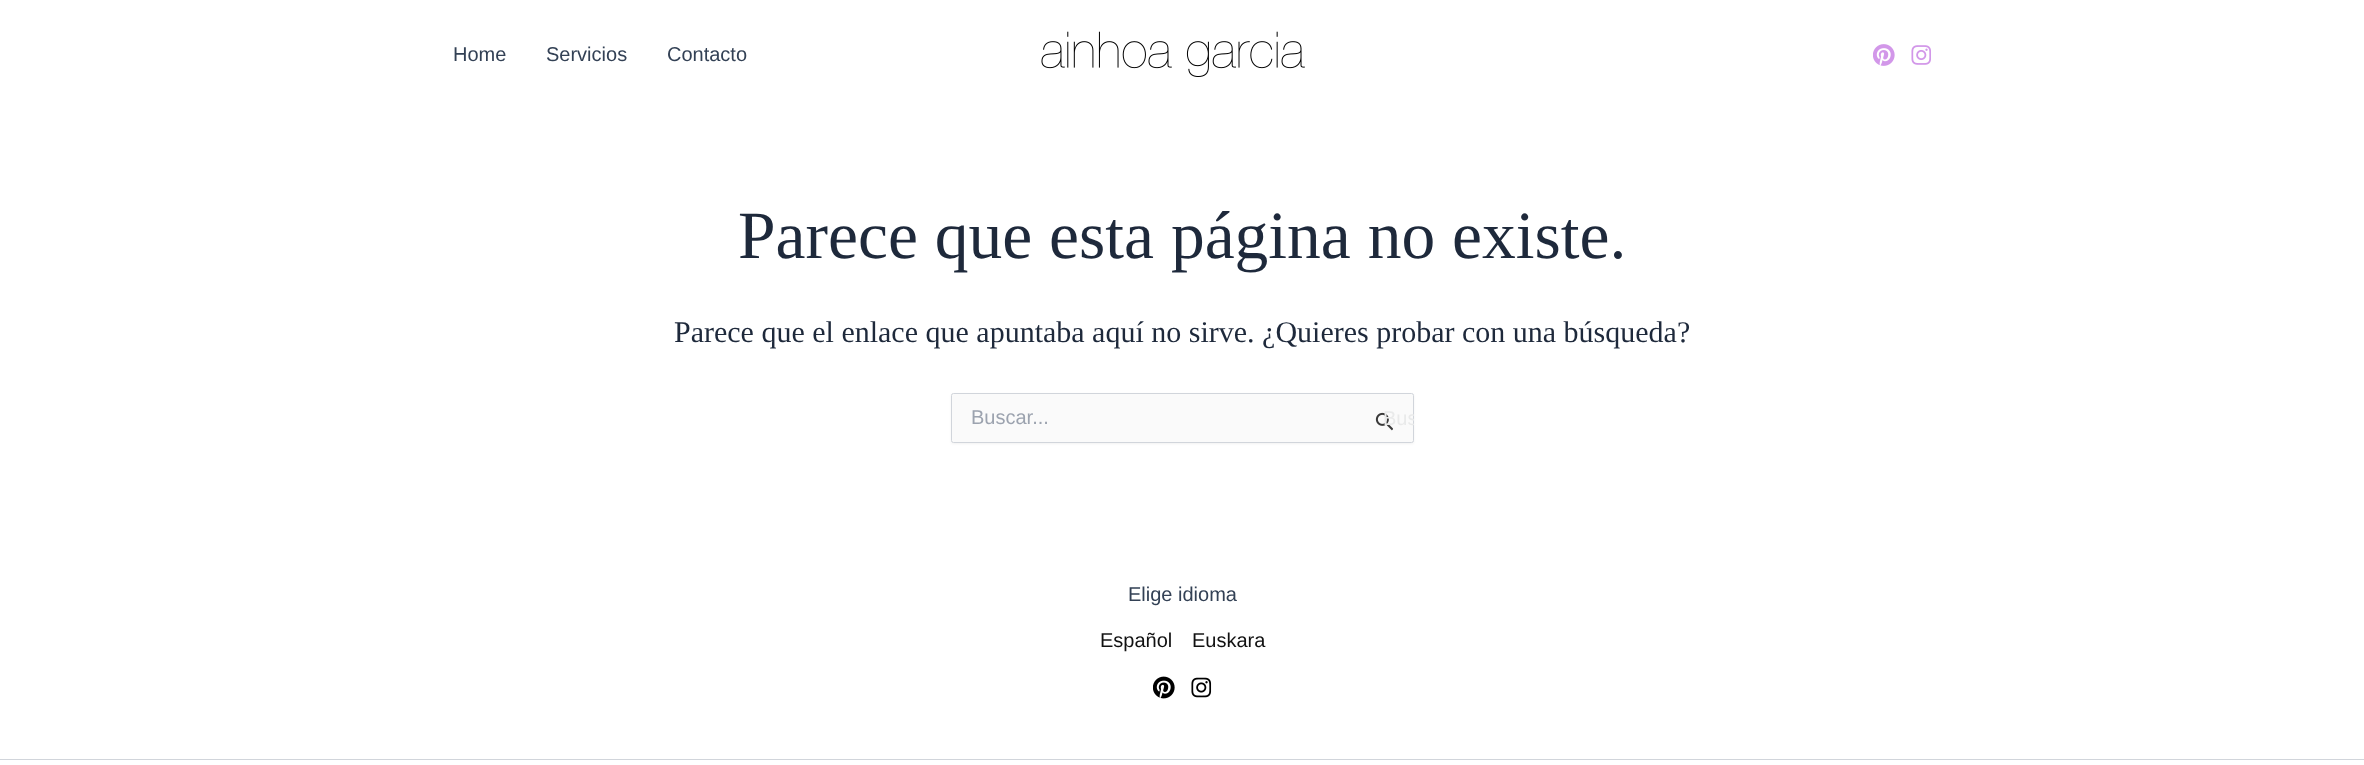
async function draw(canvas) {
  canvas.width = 2364;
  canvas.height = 765;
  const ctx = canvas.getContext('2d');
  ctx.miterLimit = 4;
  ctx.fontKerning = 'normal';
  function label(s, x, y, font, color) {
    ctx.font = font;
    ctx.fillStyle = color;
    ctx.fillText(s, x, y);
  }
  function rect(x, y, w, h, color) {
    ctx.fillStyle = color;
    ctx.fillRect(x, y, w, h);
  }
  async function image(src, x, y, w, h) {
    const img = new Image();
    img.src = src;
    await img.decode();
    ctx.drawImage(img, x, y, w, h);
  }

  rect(0, 0, 2364, 765, '#fff');
  label('Home', 453, 61, '20px Liberation Sans', '#334155');
  label('Servicios', 546, 61, '20px Liberation Sans', '#334155');
  label('Contacto', 667, 61, '20px Liberation Sans', '#334155');
  await image('assets/img1.png', 1041, 31, 264, 46);
  await image('assets/img2.png', 1873, 44, 22, 22);
  await image('assets/img3.png', 1911, 45, 20, 20);
  label('Parece que esta página no existe.', 738, 258, '67.5px Liberation Serif', '#1e293b');
  label('Parece que el enlace que apuntaba aquí no sirve. ¿Quieres probar con una búsqueda?', 674, 342, '30px Liberation Serif', '#1e293b');
  ctx.fillStyle = '#0000000d';
  ctx.filter = 'blur(1px)';
  ctx.beginPath();
  ctx.roundRect(951, 394, 463, 50, 2.5);
  ctx.fill();
  ctx.filter = 'none';
  ctx.fillStyle = '#fafafa';
  ctx.beginPath();
  ctx.roundRect(951.5, 393.5, 462, 49, 2);
  ctx.fill();
  ctx.strokeStyle = '#d1d5db';
  ctx.stroke();
  label('Buscar...', 971, 424, '20px Liberation Sans', '#9ca3af');
  await image('assets/img4.png', 1375, 412, 18, 19);
  ctx.save();
  ctx.beginPath();
  ctx.roundRect(1358, 393, 56, 52, 2.5);
  ctx.clip();
  label('Bus', 1383, 425, '20px Liberation Sans', '#e9eaea');
  ctx.restore();
  label('Elige idioma', 1128, 601, '20px Liberation Sans', '#334155');
  label('Español', 1100, 647, '20px Liberation Sans', '#111');
  label('Euskara', 1192, 647, '20px Liberation Sans', '#111');
  await image('assets/img5.png', 1153, 676, 22, 23);
  await image('assets/img6.png', 1191, 677, 21, 21);
  rect(0, 759, 2364, 1, '#d1d5db');
}

draw(document.querySelector('canvas'));
